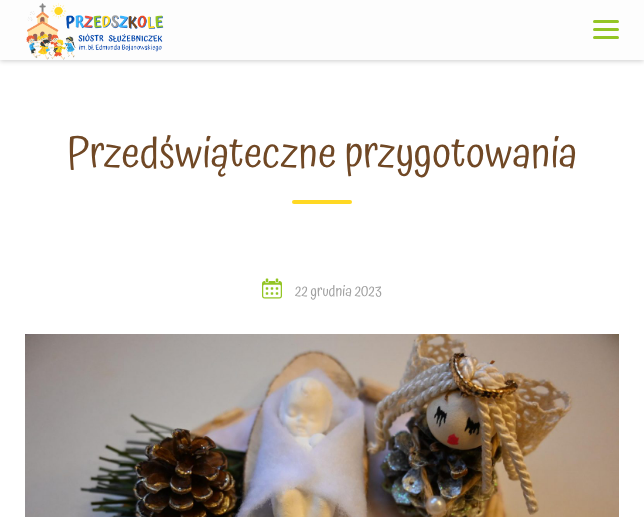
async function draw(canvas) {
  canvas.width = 644;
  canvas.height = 517;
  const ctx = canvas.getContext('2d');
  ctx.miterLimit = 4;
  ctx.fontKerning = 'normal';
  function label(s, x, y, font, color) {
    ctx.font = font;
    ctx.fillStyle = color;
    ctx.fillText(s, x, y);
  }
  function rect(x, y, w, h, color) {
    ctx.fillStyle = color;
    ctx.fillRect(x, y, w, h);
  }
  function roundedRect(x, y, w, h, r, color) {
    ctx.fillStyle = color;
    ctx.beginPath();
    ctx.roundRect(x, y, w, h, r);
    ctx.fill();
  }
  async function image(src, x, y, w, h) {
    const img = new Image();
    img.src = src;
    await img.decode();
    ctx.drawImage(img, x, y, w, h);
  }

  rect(0, 0, 644, 517, '#fff');
  ctx.fillStyle = '#00000033';
  ctx.filter = 'blur(2.5px)';
  ctx.beginPath();
  ctx.rect(0, 1, 644, 60);
  ctx.fill();
  ctx.filter = 'none';
  rect(0, 0, 644, 60, '#fdfdfd');
  await image('assets/img1.png', 26, 3, 138, 57);
  roundedRect(593, 20, 26, 3, 1.5, '#93c524');
  roundedRect(593, 28, 26, 3, 1.5, '#93c524');
  roundedRect(593, 36, 26, 3, 1.5, '#93c524');
  label('Przedświąteczne przygotowania', 67, 167, '42px Atma', '#704825');
  roundedRect(292, 200, 60, 4, 2, '#ffd823');
  await image('assets/img2.png', 262, 278, 20, 21);
  label('22 grudnia 2023', 295, 296, '15px Atma', '#a0a0a0');
  await image('assets/img3.png', 25, 334, 594, 183);
}

draw(document.querySelector('canvas'));
